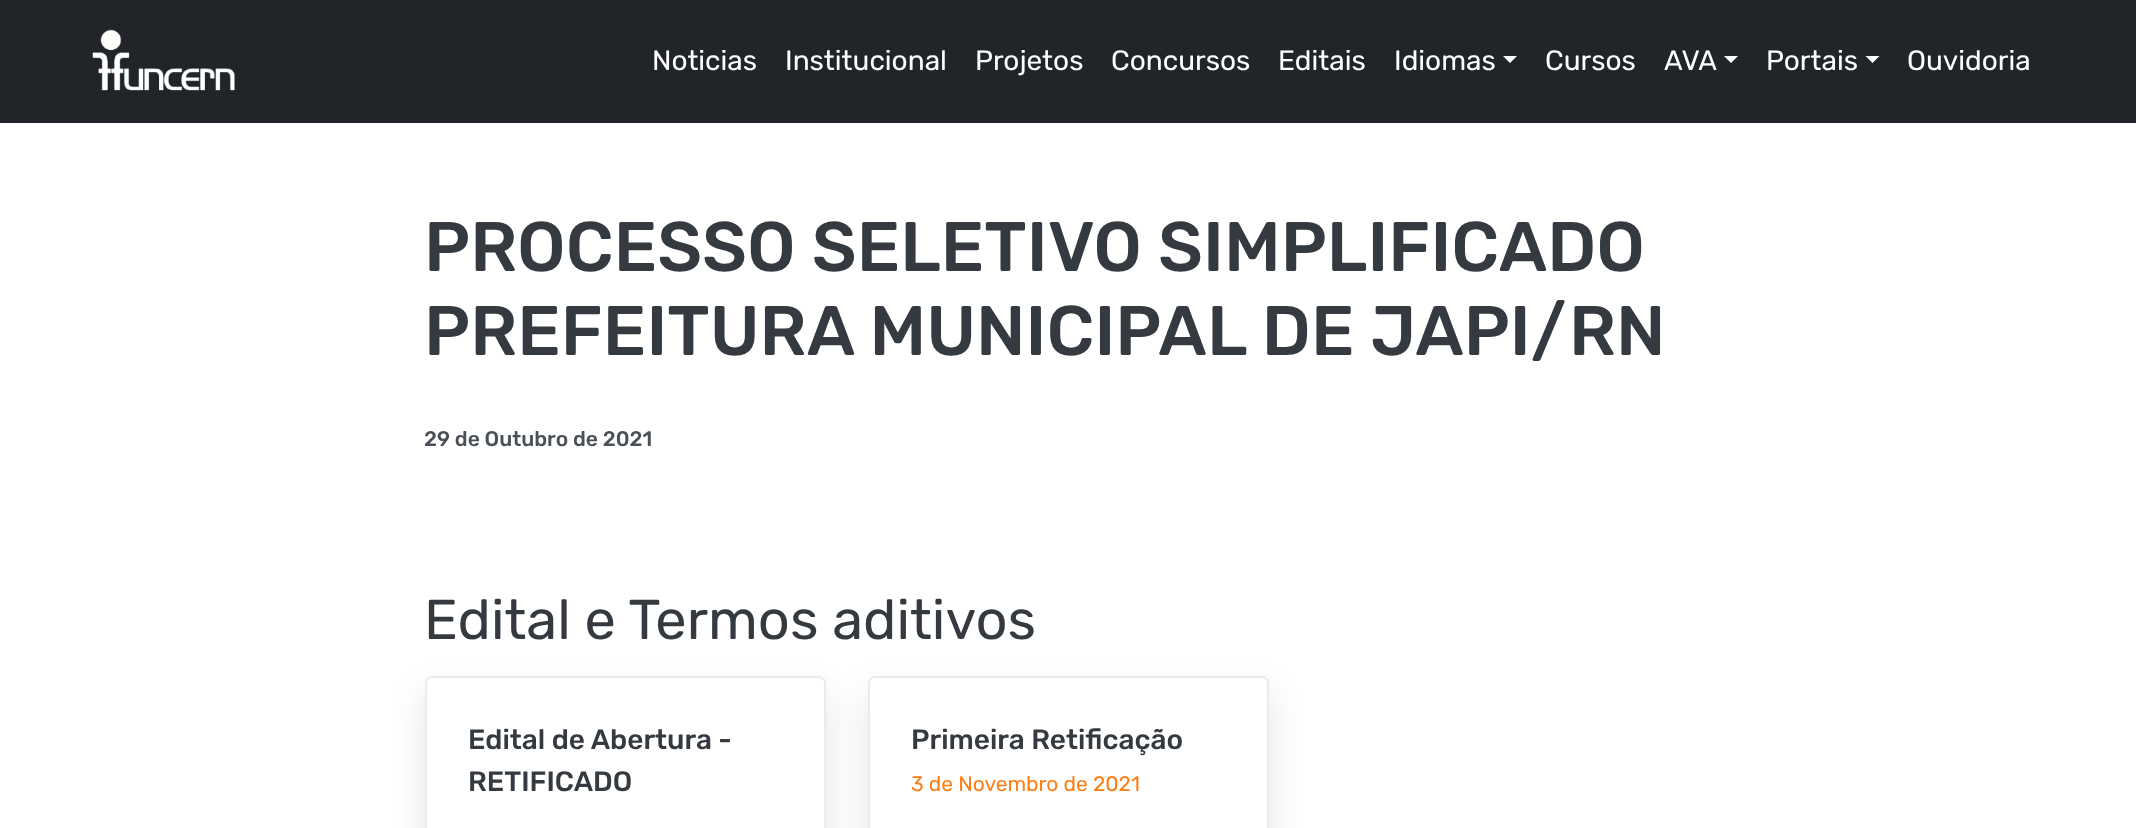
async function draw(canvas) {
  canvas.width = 2136;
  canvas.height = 828;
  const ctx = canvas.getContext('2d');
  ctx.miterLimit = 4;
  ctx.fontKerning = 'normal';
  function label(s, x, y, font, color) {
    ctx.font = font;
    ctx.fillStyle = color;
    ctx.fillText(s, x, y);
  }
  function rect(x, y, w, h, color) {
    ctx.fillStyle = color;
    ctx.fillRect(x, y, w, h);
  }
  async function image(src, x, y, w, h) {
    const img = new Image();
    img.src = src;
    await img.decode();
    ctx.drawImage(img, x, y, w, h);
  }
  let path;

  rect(0, 0, 2136, 828, '#fff');
  rect(0, 0, 2136, 123, '#212529');
  await image('assets/img1.png', 92, 29, 143, 62);
  label('Noticias', 652, 70, '28px Rubik', '#fff');
  label('Institucional', 785, 70, '28px Rubik', '#fff');
  label('Projetos', 975, 70, '28px Rubik', '#fff');
  label('Concursos', 1111, 70, '28px Rubik', '#fff');
  label('Editais', 1278, 70, '28px Rubik', '#fff');
  label('Idiomas', 1394, 70, '28px Rubik', '#fff');
  path = new Path2D('M1503 56H1517L1510 63Z');
  ctx.fill(path);
  label('Cursos', 1545, 70, '28px Rubik', '#fff');
  label('AVA', 1664, 70, '28px Rubik', '#fff');
  path = new Path2D('M1724 56H1738L1731 63Z');
  ctx.fill(path);
  label('Portais', 1766, 70, '28px Rubik', '#fff');
  path = new Path2D('M1865.5 56H1879.5L1872.5 63Z');
  ctx.fill(path);
  label('Ouvidoria', 1907, 70, '28px Rubik', '#fff');
  label('PROCESSO SELETIVO SIMPLIFICADO', 424, 271, '500 70px Rubik', '#343a40');
  label('PREFEITURA MUNICIPAL DE JAPI/RN', 424, 355, '500 70px Rubik', '#343a40');
  label('29 de Outubro de 2021', 424, 446, '500 21px Rubik', '#495057');
  label('Edital e Termos aditivos', 424, 639, '56px Rubik', '#343a40');
  ctx.fillStyle = '#0000001a';
  ctx.filter = 'blur(17.5px)';
  ctx.beginPath();
  ctx.roundRect(425, 693, 401, 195, 7);
  ctx.fill();
  ctx.filter = 'none';
  ctx.fillStyle = '#fff';
  ctx.beginPath();
  ctx.roundRect(426, 677, 399, 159, 6);
  ctx.fill();
  ctx.strokeStyle = '#e9ecef';
  ctx.lineWidth = 2;
  ctx.stroke();
  label('Edital de Abertura -', 468, 749, '500 28px Rubik', '#343a40');
  label('RETIFICADO', 468, 791, '500 28px Rubik', '#343a40');
  ctx.fillStyle = '#0000001a';
  ctx.filter = 'blur(17.5px)';
  ctx.beginPath();
  ctx.roundRect(868, 693, 401, 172, 7);
  ctx.fill();
  ctx.filter = 'none';
  ctx.fillStyle = '#fff';
  ctx.beginPath();
  ctx.roundRect(869, 677, 399, 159, 6);
  ctx.fill();
  ctx.stroke();
  label('Primeira Retificação', 911, 749, '500 28px Rubik', '#343a40');
  label('3 de Novembro de 2021', 911, 791, '21px Rubik', '#fd7e14');
}

draw(document.querySelector('canvas'));
